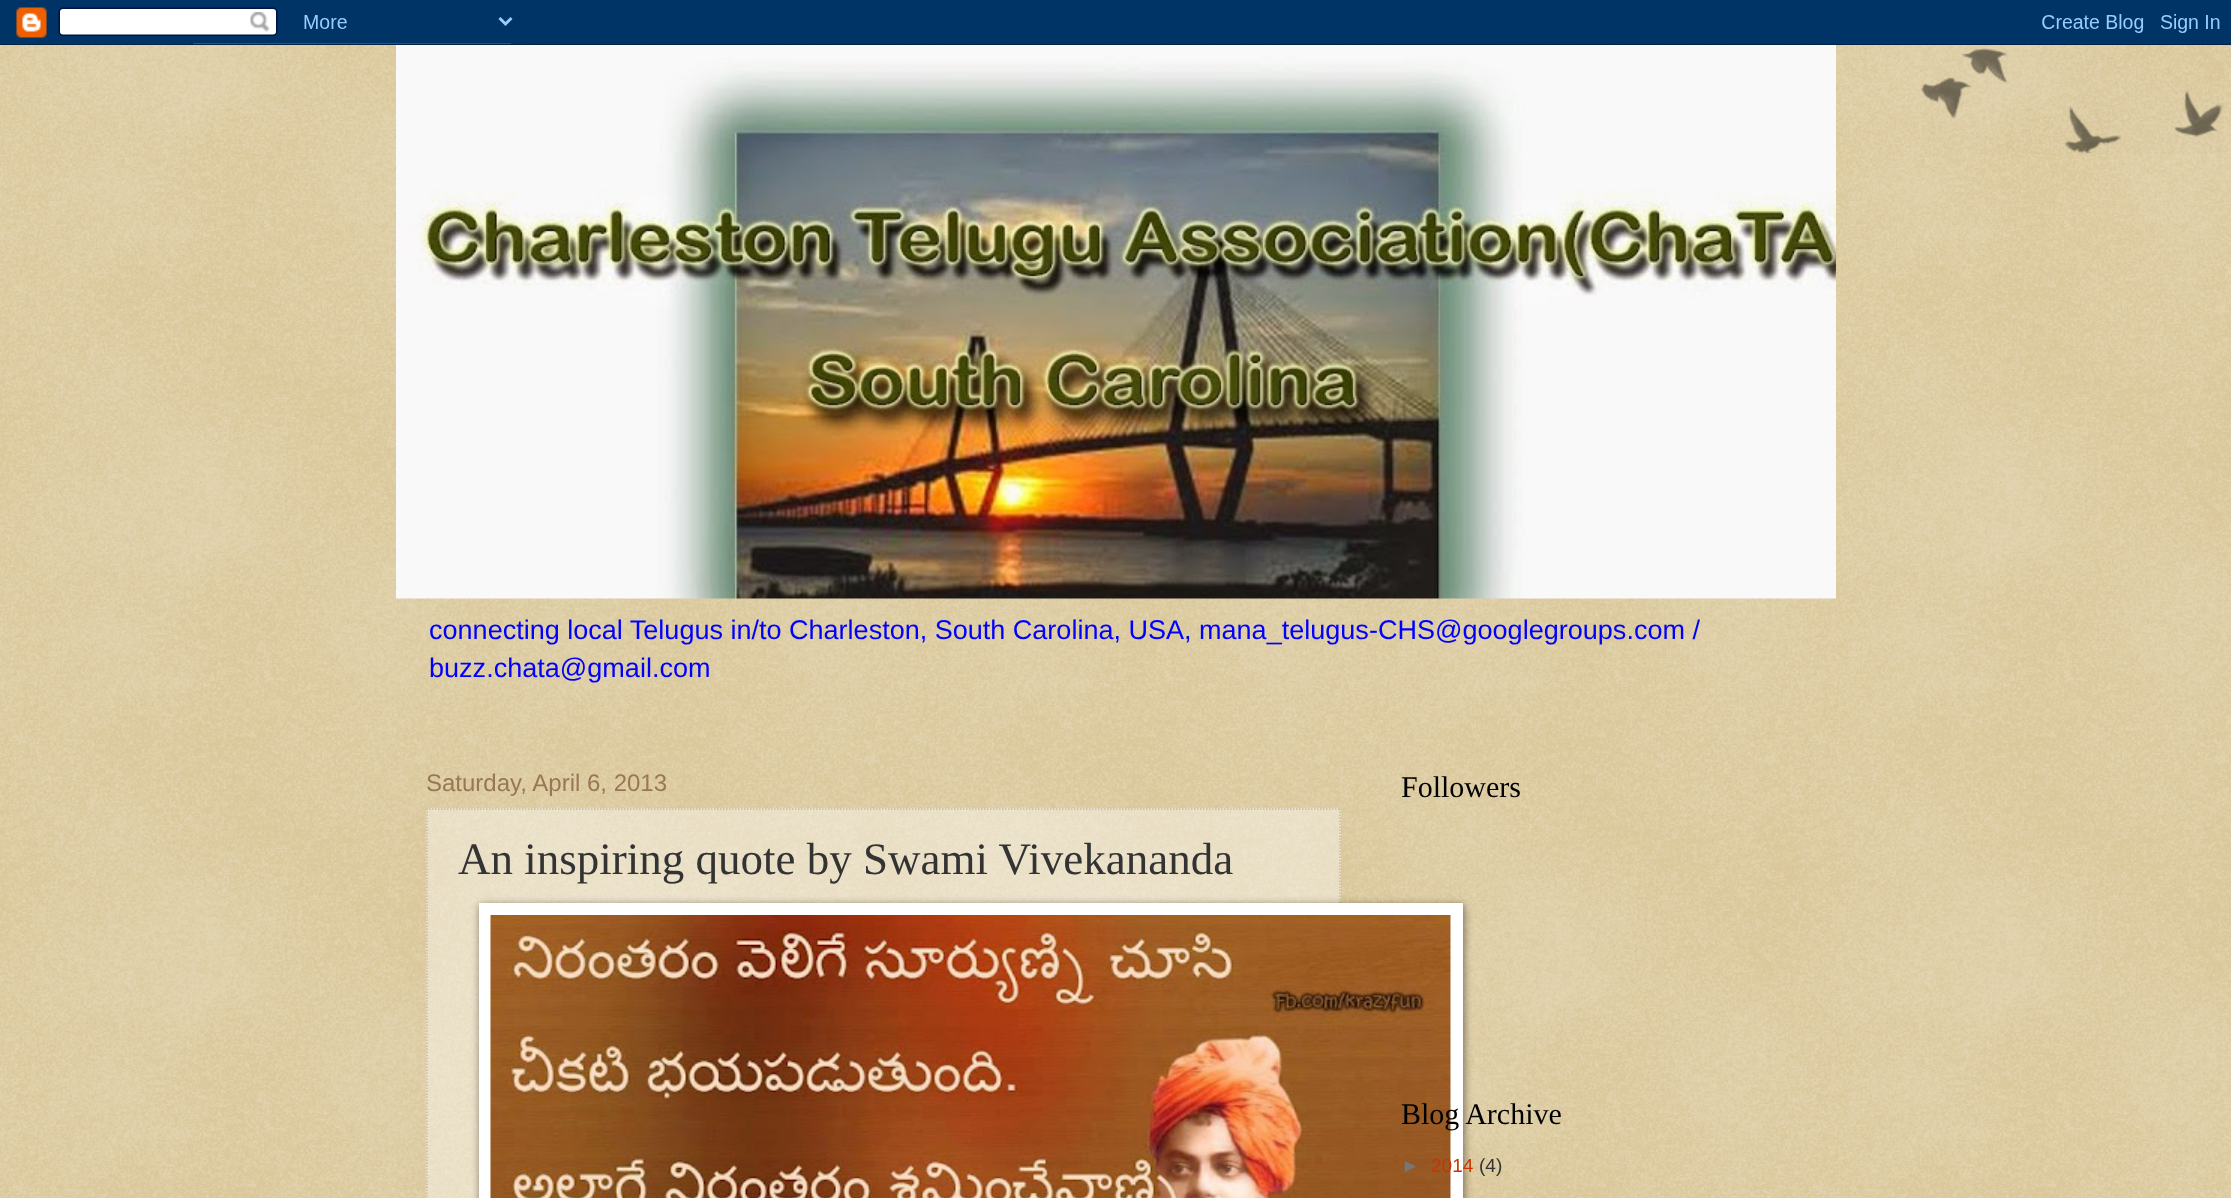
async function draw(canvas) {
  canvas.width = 2231;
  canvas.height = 1198;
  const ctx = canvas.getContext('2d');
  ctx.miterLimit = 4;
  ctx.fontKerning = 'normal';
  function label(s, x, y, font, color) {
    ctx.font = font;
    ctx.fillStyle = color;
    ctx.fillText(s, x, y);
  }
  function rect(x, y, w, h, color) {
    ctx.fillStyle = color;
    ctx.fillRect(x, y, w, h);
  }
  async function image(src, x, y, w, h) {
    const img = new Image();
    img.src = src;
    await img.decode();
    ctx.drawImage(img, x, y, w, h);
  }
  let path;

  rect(0, 0, 2231, 1198, '#c0a154');
  await image('assets/img1.png', 0, 43, 2231, 1155);
  await image('assets/img2.png', 0, 0, 2231, 45);
  await image('assets/img3.png', 1921, 48, 303, 106);
  await image('assets/img4.png', 396, 45, 1440, 554);
  ctx.wordSpacing = '-0.1px';
  label('connecting local Telugus in/to Charleston, South Carolina, USA, mana_telugus-CHS@googlegroups.com /', 429, 639, '27.05px Liberation Sans', '#00f');
  ctx.wordSpacing = '0px';
  label('buzz.chata@gmail.com', 429, 677, '27.05px Liberation Sans', '#00f');
  label('Saturday, April 6, 2013', 426, 791, '24px Liberation Sans', '#975');
  rect(426, 808, 915, 390, '#ffffff66');
  path = new Path2D('M426 809H1341');
  ctx.strokeStyle = '#cb9';
  ctx.lineWidth = 1.5;
  ctx.setLineDash([1.5, 1.5]);
  ctx.stroke(path);
  path = new Path2D('M1340 808.5V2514');
  ctx.stroke(path);
  path = new Path2D('M427 808.5V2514');
  ctx.stroke(path);
  label('An inspiring quote by Swami Vivekananda', 458, 874, '45px Liberation Serif', '#333');
  ctx.fillStyle = '#00000080';
  ctx.filter = 'blur(4px)';
  ctx.beginPath();
  ctx.rect(480, 905, 984, 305);
  ctx.fill();
  ctx.filter = 'none';
  rect(479, 903, 984, 295, '#fff');
  await image('assets/img5.png', 490, 915, 961, 283);
  label('Followers', 1401, 797, '30px Liberation Serif', '#000');
  label('Blog Archive', 1401, 1124, '30px Liberation Serif', '#000');
  label('►', 1401, 1172, '19px Liberation Sans', '#777');
  label('2014', 1431, 1172, '19px Liberation Sans', '#c30');
  label('(4)', 1479, 1172, '19px Liberation Sans', '#333');
}

draw(document.querySelector('canvas'));
